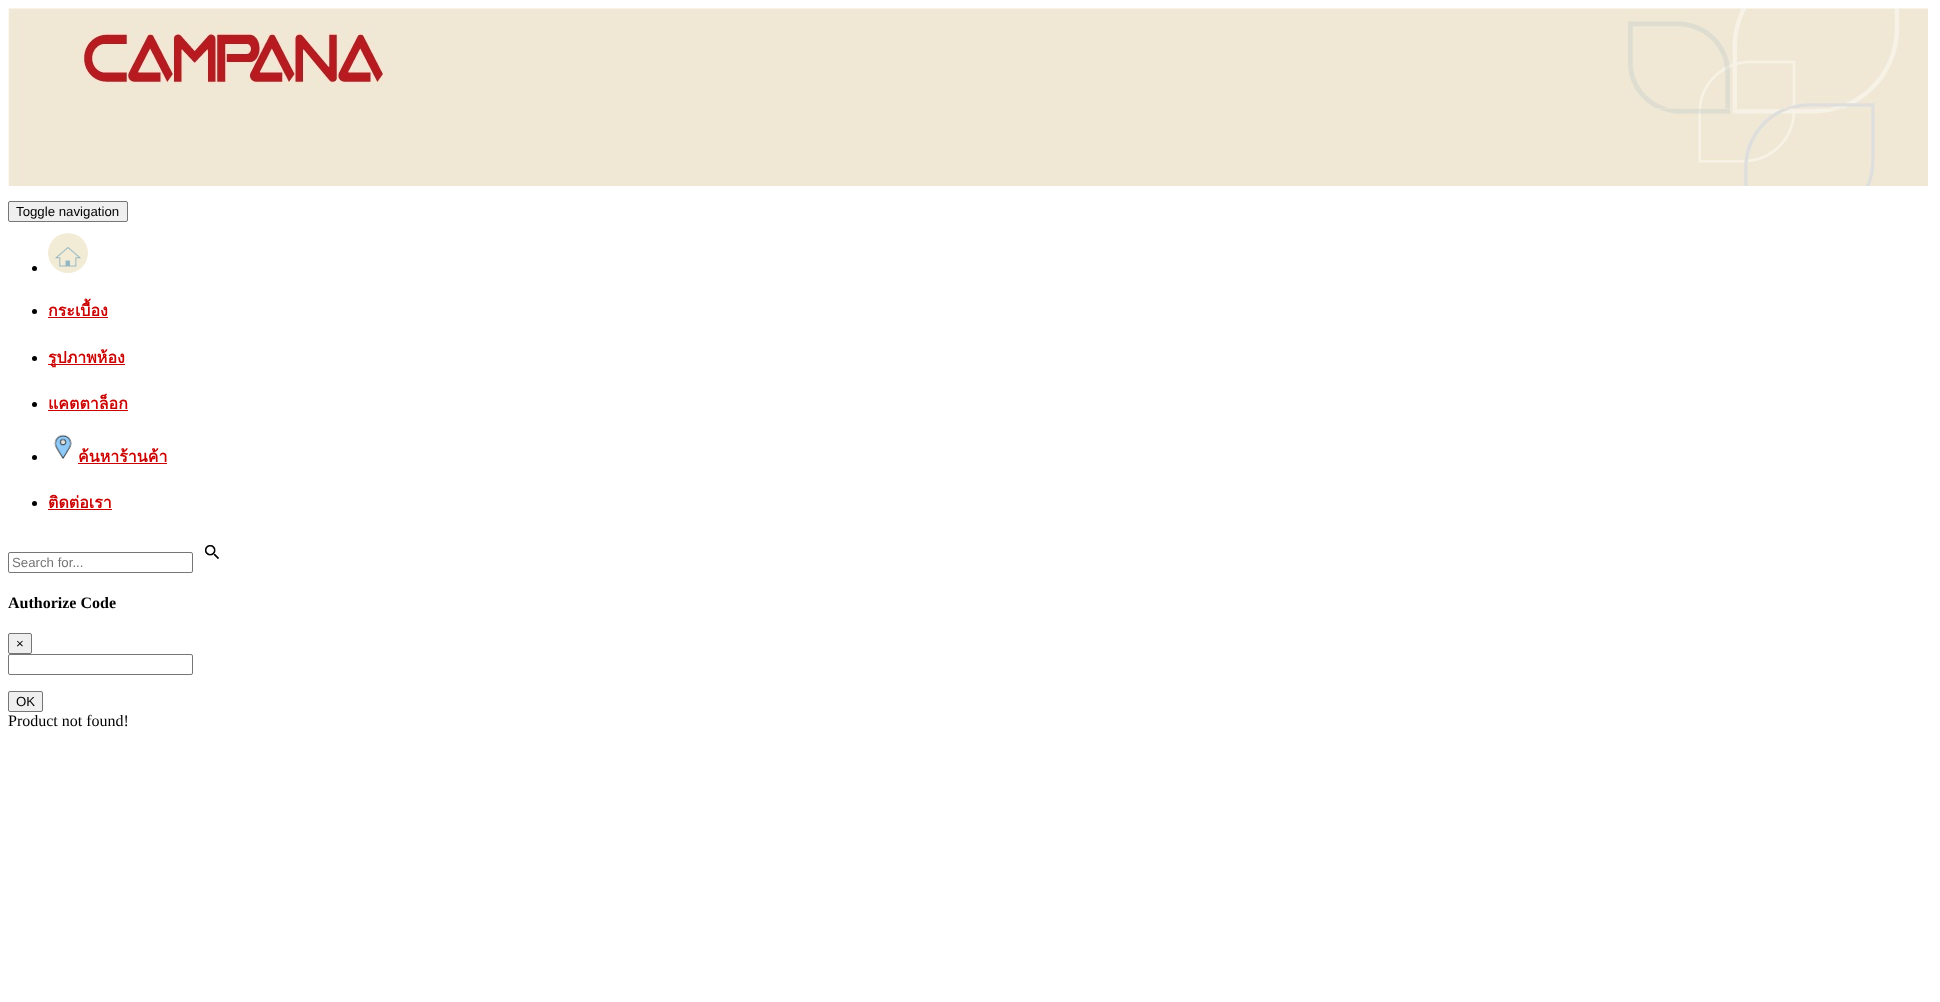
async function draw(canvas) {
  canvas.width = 1940;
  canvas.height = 1002;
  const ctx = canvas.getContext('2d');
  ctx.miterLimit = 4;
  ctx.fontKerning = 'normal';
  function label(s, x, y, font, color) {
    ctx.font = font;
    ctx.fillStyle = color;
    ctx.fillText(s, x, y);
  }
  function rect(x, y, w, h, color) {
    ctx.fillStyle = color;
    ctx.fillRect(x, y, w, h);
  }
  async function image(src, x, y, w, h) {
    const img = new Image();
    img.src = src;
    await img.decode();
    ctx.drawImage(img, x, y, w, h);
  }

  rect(0, 0, 1940, 1002, '#fff');
  await image('assets/img1.png', 8, 8, 1920, 178);
  ctx.fillStyle = '#efefef';
  ctx.beginPath();
  ctx.roundRect(8.5, 201.5, 119, 20, 1.5);
  ctx.fill();
  ctx.strokeStyle = '#767676';
  ctx.stroke();
  label('Toggle navigation', 16, 216, '13.25px Liberation Sans', '#000');
  ctx.beginPath();
  ctx.arc(34.5, 268.5, 2.5, 0, 2 * Math.PI);
  ctx.fill();
  await image('assets/img2.png', 48, 233, 40, 40);
  ctx.beginPath();
  ctx.arc(34.5, 311.5, 2.5, 0, 2 * Math.PI);
  ctx.fill();
  label('กระเบื้อง', 48, 316, 'bold 16px Loma', '#c00');
  rect(48, 317, 60, 1, '#c00');
  ctx.fillStyle = '#000';
  ctx.beginPath();
  ctx.arc(34.5, 358.5, 2.5, 0, 2 * Math.PI);
  ctx.fill();
  rect(48, 364, 77, 1, '#c00');
  label('รูปภาพห้อง', 48, 363, 'bold 16px Loma', '#c00');
  ctx.fillStyle = '#000';
  ctx.beginPath();
  ctx.arc(34.5, 404.5, 2.5, 0, 2 * Math.PI);
  ctx.fill();
  label('แคตตาล็อก', 48, 409, 'bold 16px Loma', '#c00');
  rect(48, 410, 80, 1, '#c00');
  ctx.fillStyle = '#000';
  ctx.beginPath();
  ctx.arc(34.5, 457.5, 2.5, 0, 2 * Math.PI);
  ctx.fill();
  await image('assets/img3.png', 54, 434, 18, 26);
  label('ค้นหาร้านค้า', 78, 462, 'bold 16px Loma', '#c00');
  rect(78, 463, 89, 1, '#c00');
  ctx.fillStyle = '#000';
  ctx.beginPath();
  ctx.arc(34.5, 503.5, 2.5, 0, 2 * Math.PI);
  ctx.fill();
  label('ติดต่อเรา', 48, 508, 'bold 16px Loma', '#c00');
  rect(48, 509, 64, 1, '#c00');
  await image('assets/img4.png', 205, 545, 14, 14);
  ctx.beginPath();
  ctx.roundRect(8.5, 552.5, 184, 20, 1.5);
  ctx.stroke();
  label('Search for...', 12, 567, '13.25px Liberation Sans', '#757575');
  label('Authorize Code', 8, 608, 'bold 16px Liberation Serif', '#000');
  ctx.fillStyle = '#efefef';
  ctx.beginPath();
  ctx.roundRect(8.5, 633.5, 23, 20, 1.5);
  ctx.fill();
  ctx.stroke();
  label('×', 16, 648, '13.25px Liberation Sans', '#000');
  ctx.beginPath();
  ctx.roundRect(8.5, 654.5, 184, 20, 1.5);
  ctx.stroke();
  ctx.fillStyle = '#efefef';
  ctx.beginPath();
  ctx.roundRect(8.5, 691.5, 34, 20, 1.5);
  ctx.fill();
  ctx.stroke();
  label('OK', 16, 706, '13.25px Liberation Sans', '#000');
  label('Product not found!', 8, 726, '16px Liberation Serif', '#000');
}

draw(document.querySelector('canvas'));
